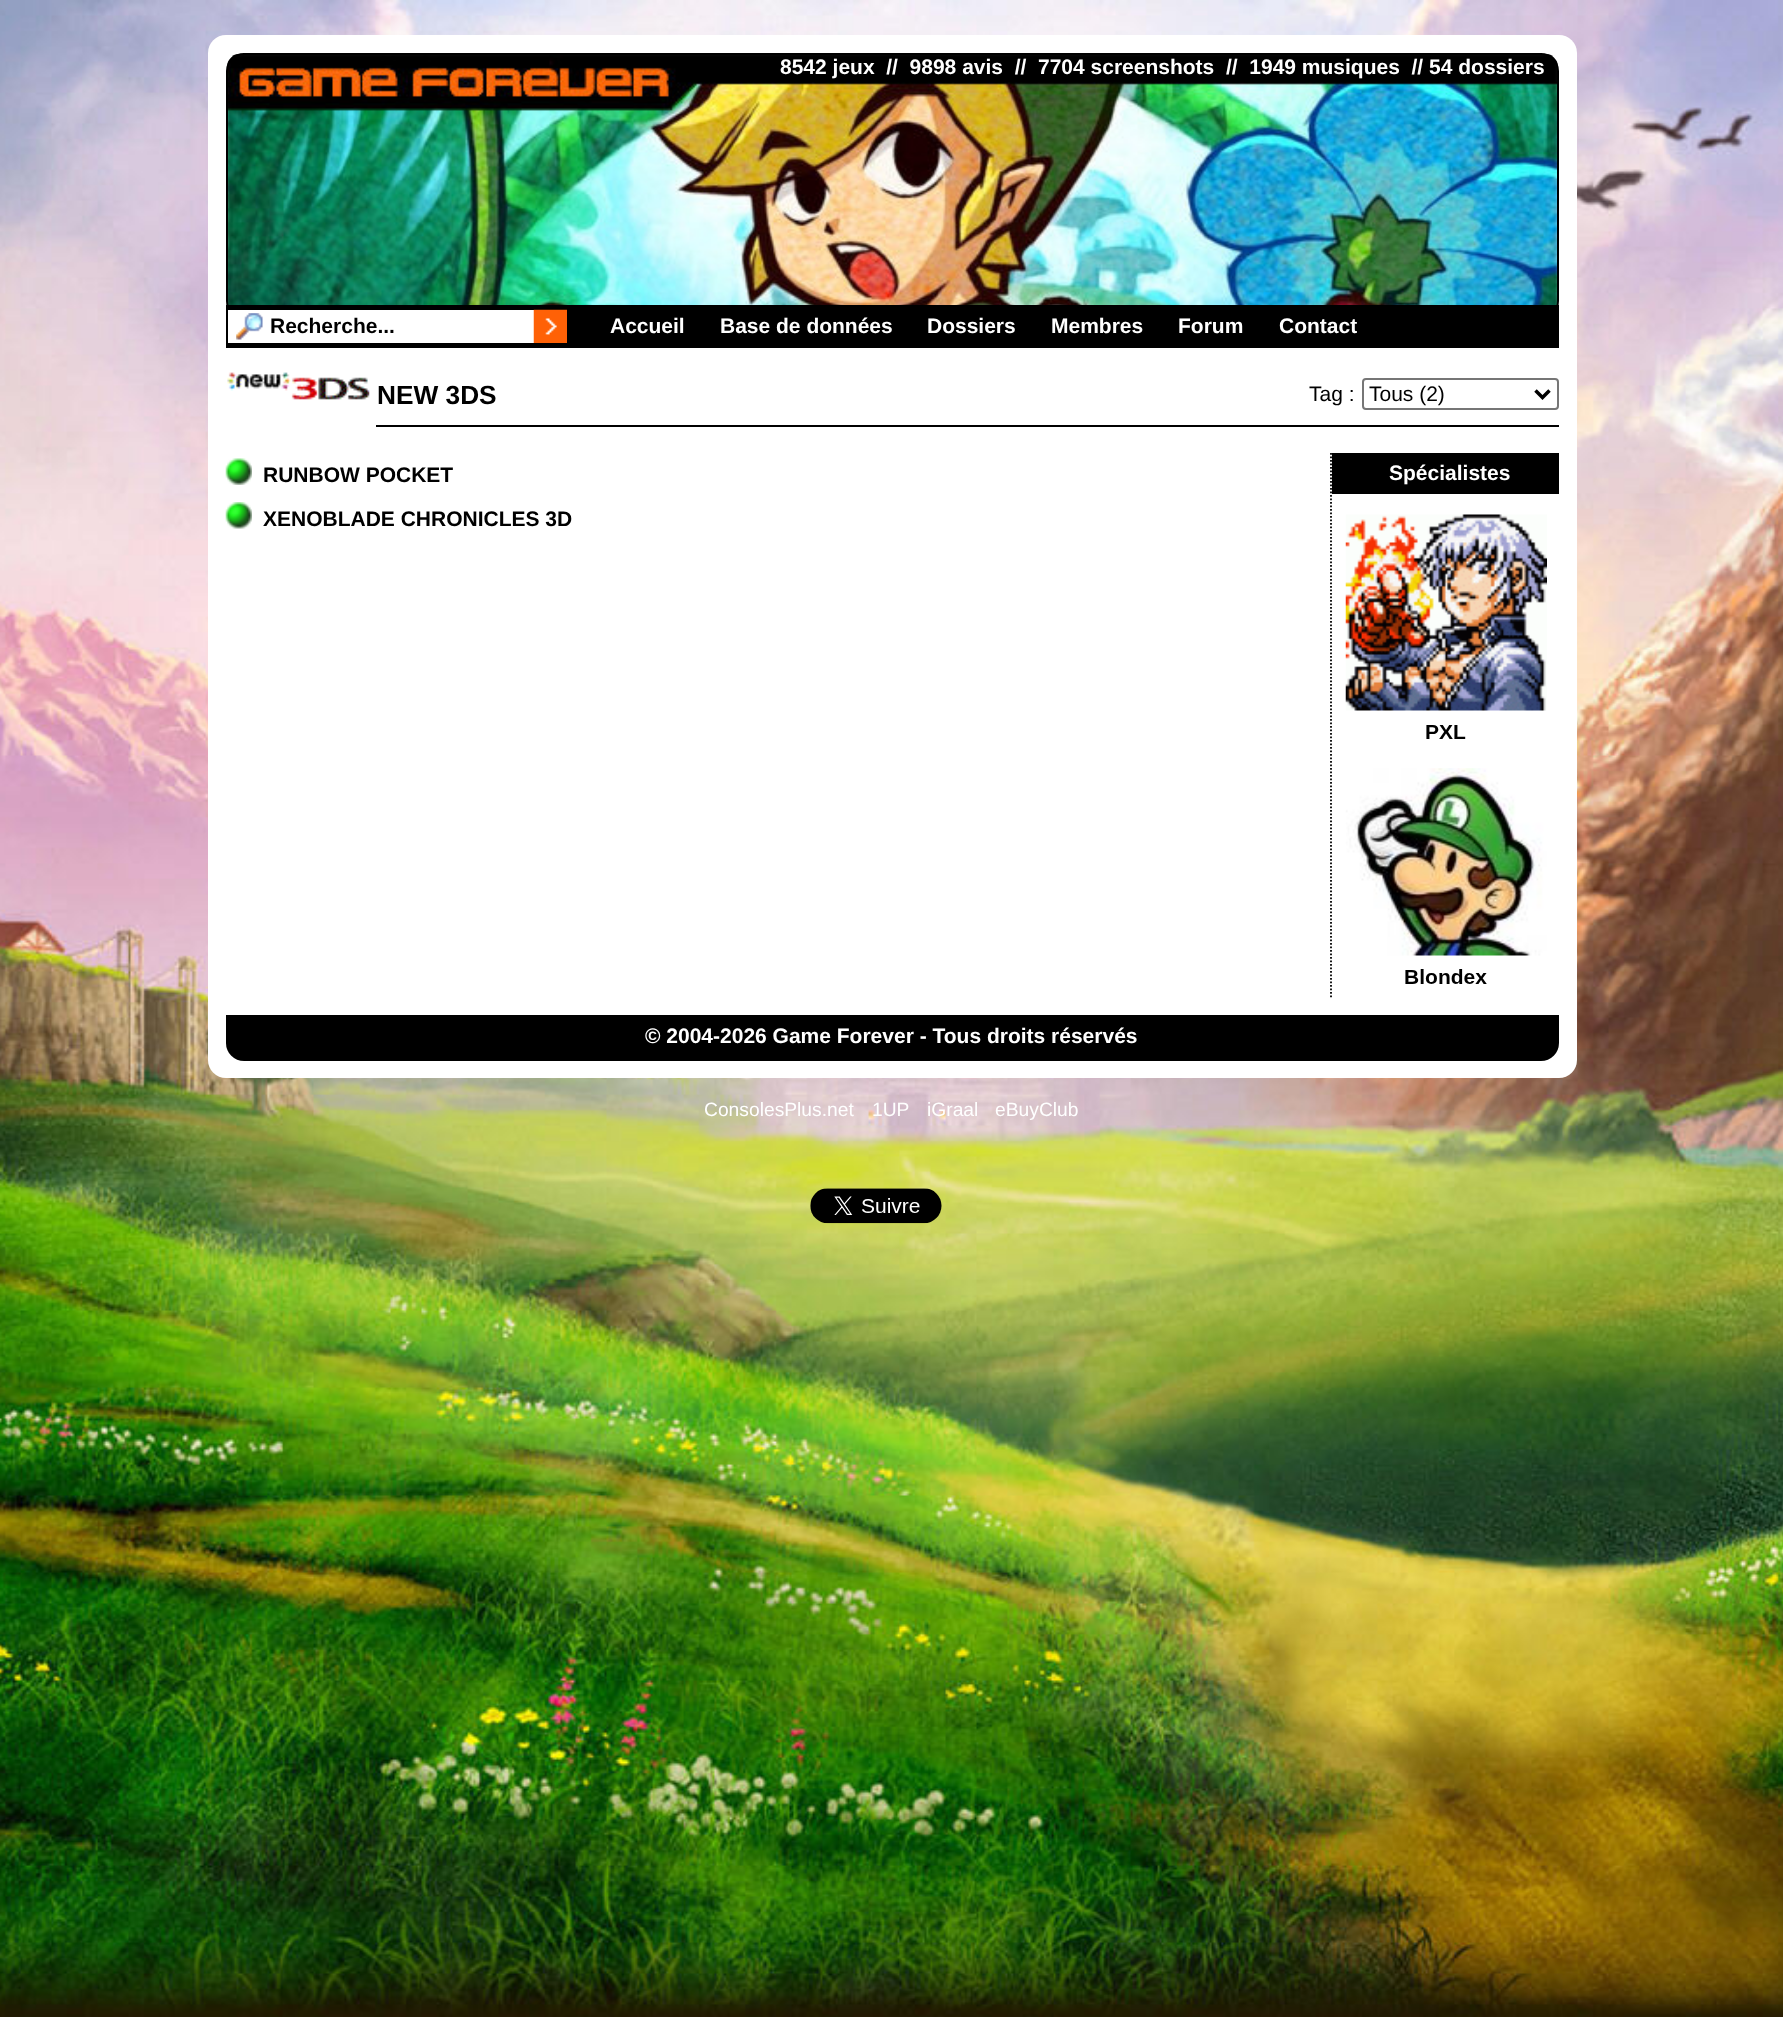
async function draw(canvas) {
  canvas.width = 1783;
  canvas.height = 2017;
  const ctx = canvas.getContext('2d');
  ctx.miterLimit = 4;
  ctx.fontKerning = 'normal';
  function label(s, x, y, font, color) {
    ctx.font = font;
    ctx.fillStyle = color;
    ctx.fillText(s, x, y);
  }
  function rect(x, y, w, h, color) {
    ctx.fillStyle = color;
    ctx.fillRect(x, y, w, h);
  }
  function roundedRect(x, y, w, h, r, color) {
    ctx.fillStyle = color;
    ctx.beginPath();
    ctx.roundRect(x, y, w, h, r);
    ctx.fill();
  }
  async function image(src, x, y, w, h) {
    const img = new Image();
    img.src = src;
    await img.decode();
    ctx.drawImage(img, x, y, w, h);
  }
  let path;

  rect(0, 0, 1783, 2017, '#fff');
  await image('assets/img1.png', 0, 0, 1783, 2017);
  roundedRect(208, 35, 1369, 1043, 18, '#fff');
  await image('assets/img2.png', 227, 54, 1331, 251);
  ctx.beginPath();
  ctx.roundRect(227, 54, 1331, 264, 17);
  ctx.strokeStyle = '#000';
  ctx.lineWidth = 2;
  ctx.stroke();
  label('8542 jeux  //  9898 avis  //  7704 screenshots  //  1949 musiques  // 54 dossiers', 780, 74, 'bold 21px Liberation Sans', '#fff');
  ctx.strokeRect(227, 306, 1331, 41);
  rect(228, 307, 1329, 39, '#000');
  rect(228, 310, 306, 33, '#fff');
  await image('assets/img3.png', 236, 313, 27, 27);
  label('Recherche...', 270, 333, 'bold 21px Liberation Sans', '#000');
  await image('assets/img4.png', 533, 309, 34, 34);
  label('Accueil', 610, 333, 'bold 21px Liberation Sans', '#fff');
  label('Base de données', 720, 333, 'bold 21px Liberation Sans', '#fff');
  label('Dossiers', 927, 333, 'bold 21px Liberation Sans', '#fff');
  label('Membres', 1051, 333, 'bold 21px Liberation Sans', '#fff');
  label('Forum', 1178, 333, 'bold 21px Liberation Sans', '#fff');
  label('Contact', 1279, 333, 'bold 21px Liberation Sans', '#fff');
  await image('assets/img5.png', 227, 372, 143, 28);
  label('NEW 3DS', 377, 404, 'bold 26.25px Liberation Sans', '#000');
  rect(376, 425, 1183, 2, '#000');
  label('Tag :', 1309, 401, '21px Liberation Sans', '#000');
  ctx.beginPath();
  ctx.roundRect(1363, 379, 195, 30, 3);
  ctx.strokeStyle = '#767676';
  ctx.stroke();
  path = new Path2D('M1535.5 390.5L1542.5 397.5L1549.5 390.5');
  ctx.strokeStyle = '#000';
  ctx.lineWidth = 3.5;
  ctx.stroke(path);
  label('Tous (2)', 1369, 401, '21px Liberation Sans', '#000');
  await image('assets/img6.png', 225, 458, 27, 27);
  label('RUNBOW POCKET', 263, 482, 'bold 21px Liberation Sans', '#000');
  await image('assets/img7.png', 225, 502, 27, 27);
  label('XENOBLADE CHRONICLES 3D', 263, 526, 'bold 21px Liberation Sans', '#000');
  path = new Path2D('M1331 453V997.5');
  ctx.lineWidth = 1.8;
  ctx.setLineDash([1.75, 1.75]);
  ctx.stroke(path);
  rect(1332, 453, 227, 41, '#000');
  label('Spécialistes', 1389, 480, 'bold 21px Liberation Sans', '#fff');
  await image('assets/img8.png', 1345, 514, 202, 470);
  ctx.fillStyle = '#000';
  ctx.beginPath();
  ctx.roundRect(226, 1015, 1333, 46, [0, 0, 18, 18]);
  ctx.fill();
  label('© 2004-2026 Game Forever - Tous droits réservés', 645, 1043, 'bold 21px Liberation Sans', '#fff');
  label('ConsolesPlus.net', 704, 1116, '19.25px Liberation Sans', '#fff');
  label('1UP', 872, 1116, '19.25px Liberation Sans', '#fff');
  label('iGraal', 927, 1116, '19.25px Liberation Sans', '#fff');
  label('eBuyClub', 995, 1116, '19.25px Liberation Sans', '#fff');
  await image('assets/img9.png', 810, 1188, 132, 36);
}

draw(document.querySelector('canvas'));
